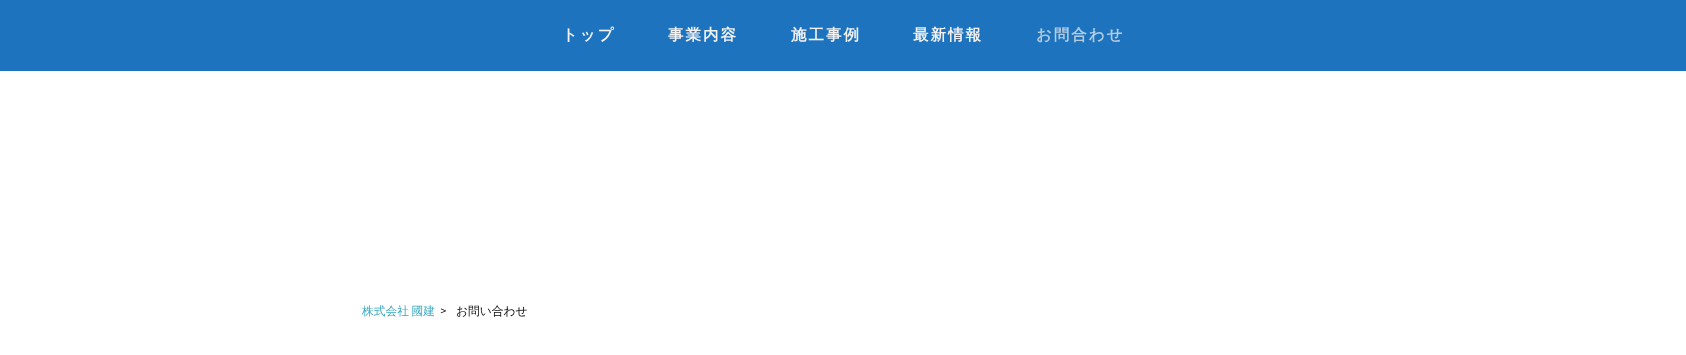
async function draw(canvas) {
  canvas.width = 1686;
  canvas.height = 355;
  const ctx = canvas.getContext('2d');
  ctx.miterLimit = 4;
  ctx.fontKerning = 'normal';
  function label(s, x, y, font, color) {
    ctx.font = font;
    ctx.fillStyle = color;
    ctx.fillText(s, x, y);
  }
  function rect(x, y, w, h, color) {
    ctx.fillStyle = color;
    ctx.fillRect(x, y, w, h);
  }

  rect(0, 0, 1686, 355, '#fff');
  rect(0, 0, 1686, 71, '#1e73be');
  ctx.letterSpacing = '2px';
  label('トップ', 562, 40, 'bold 15.5px WenQuanYi Zen Hei', '#f2f2f2');
  label('事業内容', 668, 40, 'bold 15.5px WenQuanYi Zen Hei', '#f2f2f2');
  label('施工事例', 791, 40, 'bold 15.5px WenQuanYi Zen Hei', '#f2f2f2');
  label('最新情報', 913, 40, 'bold 15.5px WenQuanYi Zen Hei', '#f2f2f2');
  label('お問合わせ', 1036, 40, 'bold 15.5px WenQuanYi Zen Hei', '#b2cce2');
  ctx.letterSpacing = '0px';
  ctx.wordSpacing = '-1px';
  label('株式会社 國建', 362, 315, '500 11.75px WenQuanYi Zen Hei', '#3ba9bf');
  ctx.wordSpacing = '0px';
  label('>', 440, 315, '100 11.75px Bitter', '#0a0a0a');
  label('お問い合わせ', 456, 315, '500 11.75px WenQuanYi Zen Hei', '#0a0a0a');
}

draw(document.querySelector('canvas'));
